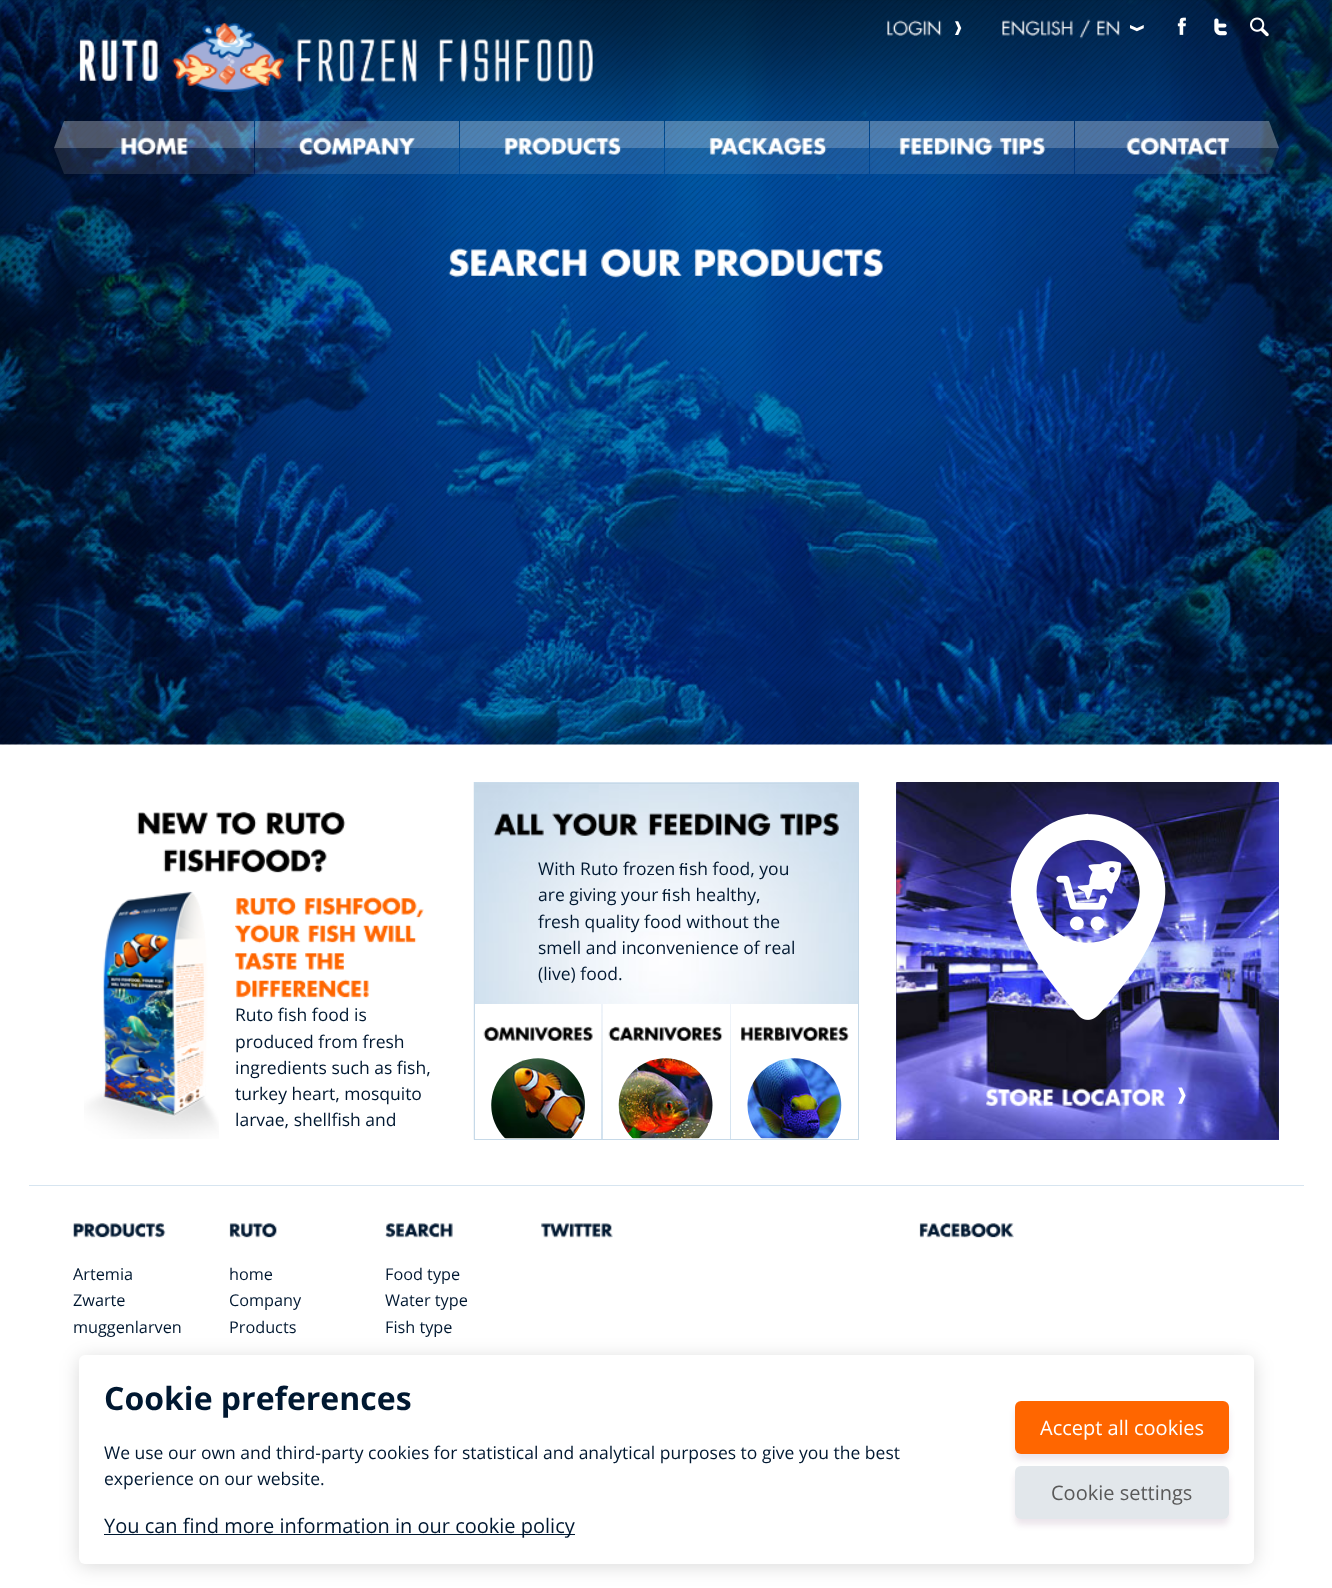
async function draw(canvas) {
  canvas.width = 1332;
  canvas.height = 1588;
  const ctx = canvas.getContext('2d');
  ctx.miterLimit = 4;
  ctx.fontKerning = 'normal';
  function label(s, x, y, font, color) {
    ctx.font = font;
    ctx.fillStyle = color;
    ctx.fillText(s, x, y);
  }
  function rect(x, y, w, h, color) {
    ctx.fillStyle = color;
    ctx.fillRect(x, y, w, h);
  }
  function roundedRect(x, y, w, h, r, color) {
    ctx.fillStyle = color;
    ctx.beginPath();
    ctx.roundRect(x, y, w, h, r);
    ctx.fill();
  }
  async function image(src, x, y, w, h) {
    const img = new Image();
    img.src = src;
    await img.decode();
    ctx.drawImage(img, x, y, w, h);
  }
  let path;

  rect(0, 0, 1332, 1588, '#fff');
  await image('assets/img1.png', 0, 0, 1332, 745);
  await image('assets/img2.png', 0, 0, 1332, 745);
  await image('assets/img3.png', 79, 23, 514, 70);
  await image('assets/img4.png', 887, 20, 55, 16);
  await image('assets/img5.png', 955, 21, 7, 14);
  await image('assets/img6.png', 1002, 20, 71, 16);
  await image('assets/img7.png', 1079, 19, 12, 20);
  await image('assets/img8.png', 1097, 20, 23, 16);
  await image('assets/img9.png', 1130, 25, 14, 7);
  await image('assets/img10.png', 1177, 17, 9, 18);
  await image('assets/img11.png', 1214, 18, 13, 18);
  await image('assets/img12.png', 1250, 17, 19, 20);
  ctx.fillStyle = '#ffffff4d';
  path = new Path2D('M254 148H54L64 121H254Z');
  ctx.fill(path);
  ctx.fillStyle = '#ffffff1a';
  path = new Path2D('M54 148H254V174H64Z');
  ctx.fill(path);
  await image('assets/img13.png', 121, 137, 67, 19);
  rect(255, 121, 204, 27, '#ffffff4d');
  rect(255, 148, 204, 26, '#ffffff1a');
  await image('assets/img14.png', 298, 137, 118, 19);
  rect(460, 121, 204, 27, '#ffffff4d');
  rect(460, 148, 204, 26, '#ffffff1a');
  await image('assets/img15.png', 504, 137, 118, 19);
  rect(665, 121, 204, 27, '#ffffff4d');
  rect(665, 148, 204, 26, '#ffffff1a');
  await image('assets/img16.png', 709, 137, 118, 19);
  rect(870, 121, 204, 27, '#ffffff4d');
  rect(870, 148, 204, 26, '#ffffff1a');
  await image('assets/img17.png', 899, 137, 94, 19);
  await image('assets/img18.png', 1000, 137, 46, 18);
  ctx.fillStyle = '#ffffff4d';
  path = new Path2D('M1279 148H1075V121H1269Z');
  ctx.fill(path);
  ctx.fillStyle = '#ffffff1a';
  path = new Path2D('M1075 148H1279L1269 174H1075Z');
  ctx.fill(path);
  await image('assets/img19.png', 1126, 137, 103, 19);
  await image('assets/img20.png', 448, 248, 139, 30);
  await image('assets/img21.png', 601, 248, 81, 30);
  await image('assets/img22.png', 694, 248, 189, 30);
  await image('assets/img23.png', 473, 782, 386, 358);
  ctx.strokeStyle = '#c6d9e8';
  ctx.strokeRect(474.5, 783.5, 384, 356);
  await image('assets/img24.png', 493, 813, 51, 23);
  await image('assets/img25.png', 552, 813, 87, 23);
  await image('assets/img26.png', 648, 813, 123, 23);
  await image('assets/img27.png', 780, 813, 59, 23);
  label('With Ruto frozen', 538, 875, '17.5px Open Sans', '#001831');
  label('ﬁ', 679, 875, '17.5px Carlito', '#001831');
  label('sh food, you', 689, 875, '17.5px Open Sans', '#001831');
  label('are giving your', 538, 901, '17.5px Open Sans', '#001831');
  label('ﬁ', 662, 901, '17.5px Carlito', '#001831');
  label('sh healthy,', 672, 901, '17.5px Open Sans', '#001831');
  label('fresh quality food without the', 538, 928, '17.5px Open Sans', '#001831');
  label('smell and inconvenience of real', 538, 954, '17.5px Open Sans', '#001831');
  label('(live) food.', 538, 980, '17.5px Open Sans', '#001831');
  rect(475, 1004, 126, 135, '#fff');
  await image('assets/img28.png', 483, 1026, 110, 15);
  await image('assets/img29.png', 491, 1058, 94, 81);
  rect(603, 1004, 127, 135, '#fff');
  await image('assets/img30.png', 608, 1026, 115, 15);
  await image('assets/img31.png', 618, 1058, 95, 81);
  rect(731, 1004, 127, 135, '#fff');
  await image('assets/img32.png', 741, 1026, 108, 15);
  await image('assets/img33.png', 747, 1058, 95, 81);
  rect(896, 783, 383, 357, '#343793');
  await image('assets/img34.png', 896, 782, 383, 358);
  await image('assets/img35.png', 1010, 813, 156, 207);
  await image('assets/img36.png', 986, 1088, 68, 19);
  await image('assets/img37.png', 1062, 1088, 104, 19);
  await image('assets/img38.png', 1178, 1087, 8, 17);
  await image('assets/img39.png', 137, 812, 71, 23);
  await image('assets/img40.png', 216, 811, 41, 24);
  await image('assets/img41.png', 266, 811, 80, 24);
  await image('assets/img42.png', 163, 849, 164, 24);
  await image('assets/img43.png', 84, 891, 135, 248);
  await image('assets/img44.png', 236, 897, 61, 19);
  await image('assets/img45.png', 304, 897, 120, 21);
  await image('assets/img46.png', 235, 924, 66, 20);
  await image('assets/img47.png', 308, 924, 48, 19);
  await image('assets/img48.png', 363, 925, 54, 18);
  await image('assets/img49.png', 235, 952, 62, 18);
  await image('assets/img50.png', 305, 953, 39, 17);
  await image('assets/img51.png', 236, 979, 133, 19);
  label('Ruto fish food is', 235, 1021, '17.5px Open Sans', '#001831');
  label('produced from fresh', 235, 1048, '17.5px Open Sans', '#001831');
  label('ingredients such as fish,', 235, 1074, '17.5px Open Sans', '#001831');
  label('turkey heart, mosquito', 235, 1100, '17.5px Open Sans', '#001831');
  label('larvae, shellfish and', 235, 1126, '17.5px Open Sans', '#001831');
  rect(29, 1185, 1275, 1, '#d7e5f0');
  await image('assets/img52.png', 541, 1223, 72, 15);
  await image('assets/img53.png', 919, 1223, 95, 15);
  await image('assets/img54.png', 73, 1223, 93, 15);
  label('Artemia', 73, 1280, '16.25px Open Sans', '#001831');
  label('Zwarte', 73, 1306, '16.25px Open Sans', '#001831');
  label('muggenlarven', 73, 1333, '16.25px Open Sans', '#001831');
  await image('assets/img55.png', 229, 1223, 48, 15);
  label('home', 229, 1280, '16.25px Open Sans', '#001831');
  label('Company', 229, 1306, '16.25px Open Sans', '#001831');
  label('Products', 229, 1333, '16.25px Open Sans', '#001831');
  await image('assets/img56.png', 385, 1223, 68, 15);
  label('Food type', 385, 1280, '16.25px Open Sans', '#001831');
  label('Water type', 385, 1306, '16.25px Open Sans', '#001831');
  label('Fish type', 385, 1333, '16.25px Open Sans', '#001831');
  ctx.fillStyle = '#00000026';
  ctx.filter = 'blur(9.5px)';
  ctx.beginPath();
  ctx.roundRect(79, 1358, 1175, 208, 6);
  ctx.fill();
  ctx.filter = 'none';
  roundedRect(79, 1355, 1175, 209, 6, '#fff');
  label('Cookie preferences', 104, 1410, 'bold 32px Open Sans', '#001831');
  label('We use our own and third-party cookies for statistical and analytical purposes to give you the best', 104, 1459, '17.5px Open Sans', '#001831');
  label('experience on our website.', 104, 1485, '17.5px Open Sans', '#001831');
  rect(104, 1534, 471, 1, '#001831');
  label('You can find more information in our cookie policy', 104, 1533, '20px Open Sans', '#001831');
  ctx.fillStyle = '#40003b1a';
  ctx.filter = 'blur(3px)';
  ctx.beginPath();
  ctx.roundRect(1015, 1408, 214, 52, 6);
  ctx.fill();
  ctx.filter = 'none';
  roundedRect(1015, 1401, 214, 53, 6, '#f60');
  label('Accept all cookies', 1040, 1435, '20px Open Sans', '#fff');
  ctx.fillStyle = '#40003b1a';
  ctx.filter = 'blur(3px)';
  ctx.beginPath();
  ctx.roundRect(1015, 1473, 214, 52, 6);
  ctx.fill();
  ctx.filter = 'none';
  roundedRect(1015, 1466, 214, 53, 6, '#e2e7eb');
  label('Cookie settings', 1051, 1500, '20px Open Sans', '#595959');
}

draw(document.querySelector('canvas'));
